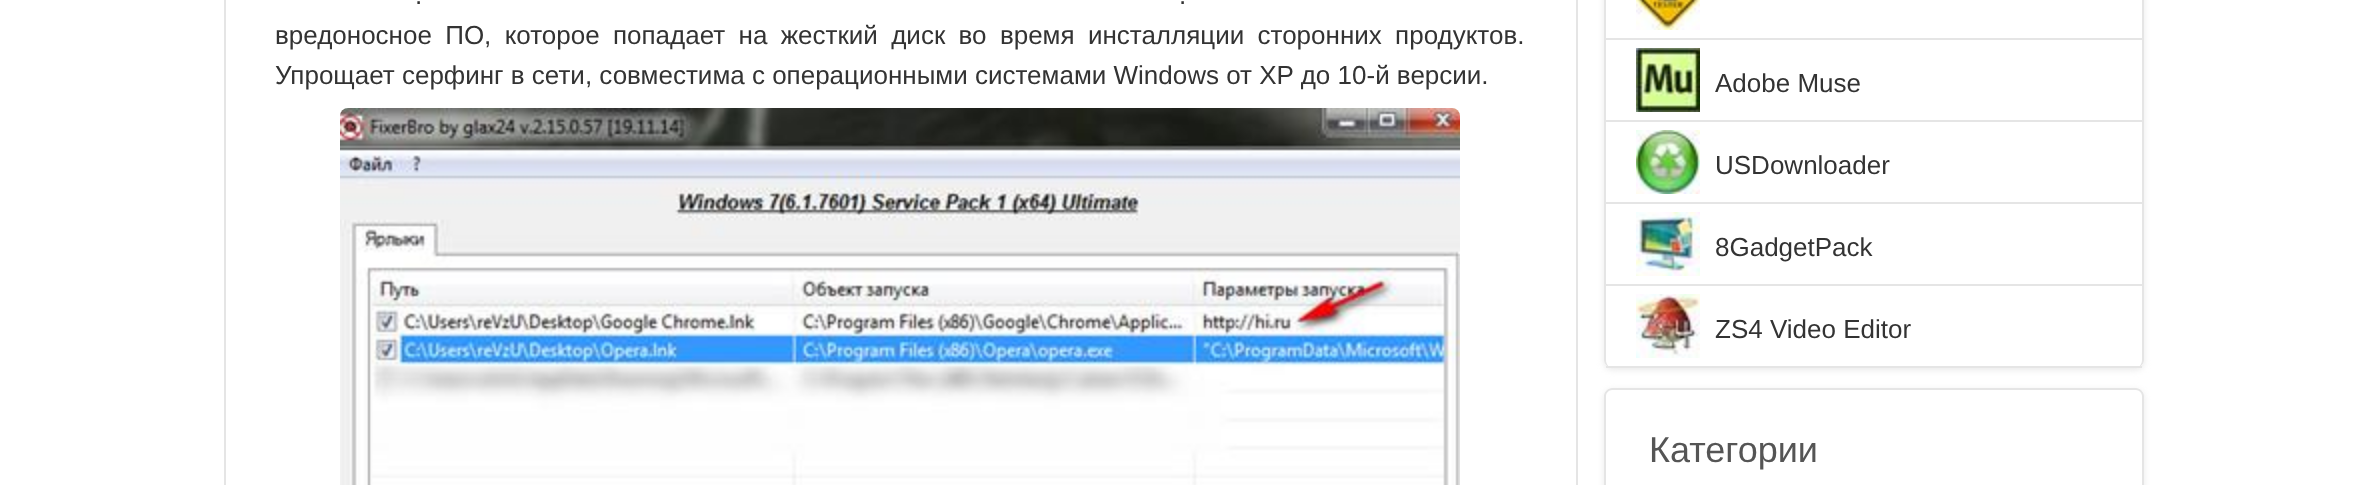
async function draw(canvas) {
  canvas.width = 2366;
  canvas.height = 485;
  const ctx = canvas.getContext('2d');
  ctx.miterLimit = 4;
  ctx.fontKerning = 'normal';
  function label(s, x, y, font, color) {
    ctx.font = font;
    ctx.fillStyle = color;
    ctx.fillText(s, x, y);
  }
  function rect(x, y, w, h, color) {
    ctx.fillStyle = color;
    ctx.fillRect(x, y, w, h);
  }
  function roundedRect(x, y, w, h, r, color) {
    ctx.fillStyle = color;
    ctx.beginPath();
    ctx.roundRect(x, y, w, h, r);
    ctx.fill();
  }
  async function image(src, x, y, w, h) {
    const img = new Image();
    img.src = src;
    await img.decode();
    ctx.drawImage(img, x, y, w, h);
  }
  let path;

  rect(0, 0, 2366, 485, '#fff');
  ctx.strokeStyle = '#e5e5e5';
  ctx.lineWidth = 2;
  ctx.strokeRect(225, -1, 1352, 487);
  ctx.wordSpacing = '10px';
  label('.', 415, 4, '26px Liberation Sans', '#333');
  label('.', 1179, 4, '26px Liberation Sans', '#333');
  ctx.wordSpacing = '6.1px';
  label('вредоносное ПО, которое попадает на жесткий диск во время инсталляции сторонних продуктов.', 275, 44, '26px Liberation Sans', '#333');
  ctx.wordSpacing = '0px';
  label('Упрощает серфинг в сети, совместима с операционными системами Windows от XP до 10-й версии.', 275, 84, '26px Liberation Sans', '#333');
  await image('assets/img1.png', 340, 108, 1120, 377);
  ctx.fillStyle = '#e9e9e9';
  ctx.filter = 'blur(3px)';
  ctx.beginPath();
  ctx.roundRect(1604, -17, 540, 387, 8);
  ctx.fill();
  ctx.filter = 'none';
  roundedRect(1604, -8, 540, 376, 8, '#fff');
  ctx.fillStyle = '#e5e5e5';
  path = new Path2D('M1612-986H2136C2140-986 2144-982 2144-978V360C2144 364 2140 368 2136 368H1612C1608 368 1604 364 1604 360V-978C1604-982 1608-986 1612-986ZM1612-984H2136C2139-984 2142-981 2142-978V360C2142 364 2139 368 2136 368H1612C1609 368 1606 364 1606 360V-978C1606-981 1609-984 1612-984Z');
  ctx.fill(path, 'evenodd');
  rect(1606, 38, 536, 2, '#e5e5e5');
  await image('assets/img2.png', 1636, 0, 64, 30);
  rect(1606, 120, 536, 2, '#e5e5e5');
  await image('assets/img3.png', 1636, 48, 64, 64);
  label('Adobe Muse', 1715, 92, '26px Liberation Sans', '#333');
  rect(1606, 202, 536, 2, '#e5e5e5');
  await image('assets/img4.png', 1636, 130, 64, 64);
  label('USDownloader', 1715, 174, '26px Liberation Sans', '#333');
  rect(1606, 284, 536, 2, '#e5e5e5');
  await image('assets/img5.png', 1636, 212, 64, 64);
  label('8GadgetPack', 1715, 256, '26px Liberation Sans', '#333');
  rect(1606, 366, 536, 2, '#e5e5e5');
  await image('assets/img6.png', 1636, 294, 64, 64);
  label('ZS4 Video Editor', 1715, 338, '26px Liberation Sans', '#333');
  ctx.fillStyle = '#e9e9e9';
  ctx.filter = 'blur(3px)';
  ctx.beginPath();
  ctx.roundRect(1604, 390, 540, 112, 8);
  ctx.fill();
  ctx.filter = 'none';
  roundedRect(1604, 388, 540, 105, 8, '#fff');
  ctx.fillStyle = '#e5e5e5';
  path = new Path2D('M1612 388H2136C2140 388 2144 392 2144 396V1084C2144 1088 2140 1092 2136 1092H1612C1608 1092 1604 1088 1604 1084V396C1604 392 1608 388 1612 388ZM1612 390H2136C2139 390 2142 393 2142 396V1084C2142 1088 2139 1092 2136 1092H1612C1609 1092 1606 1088 1606 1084V396C1606 393 1609 390 1612 390Z');
  ctx.fill(path, 'evenodd');
  label('Категории', 1649, 462, '36px Liberation Sans', '#555');
}

draw(document.querySelector('canvas'));
